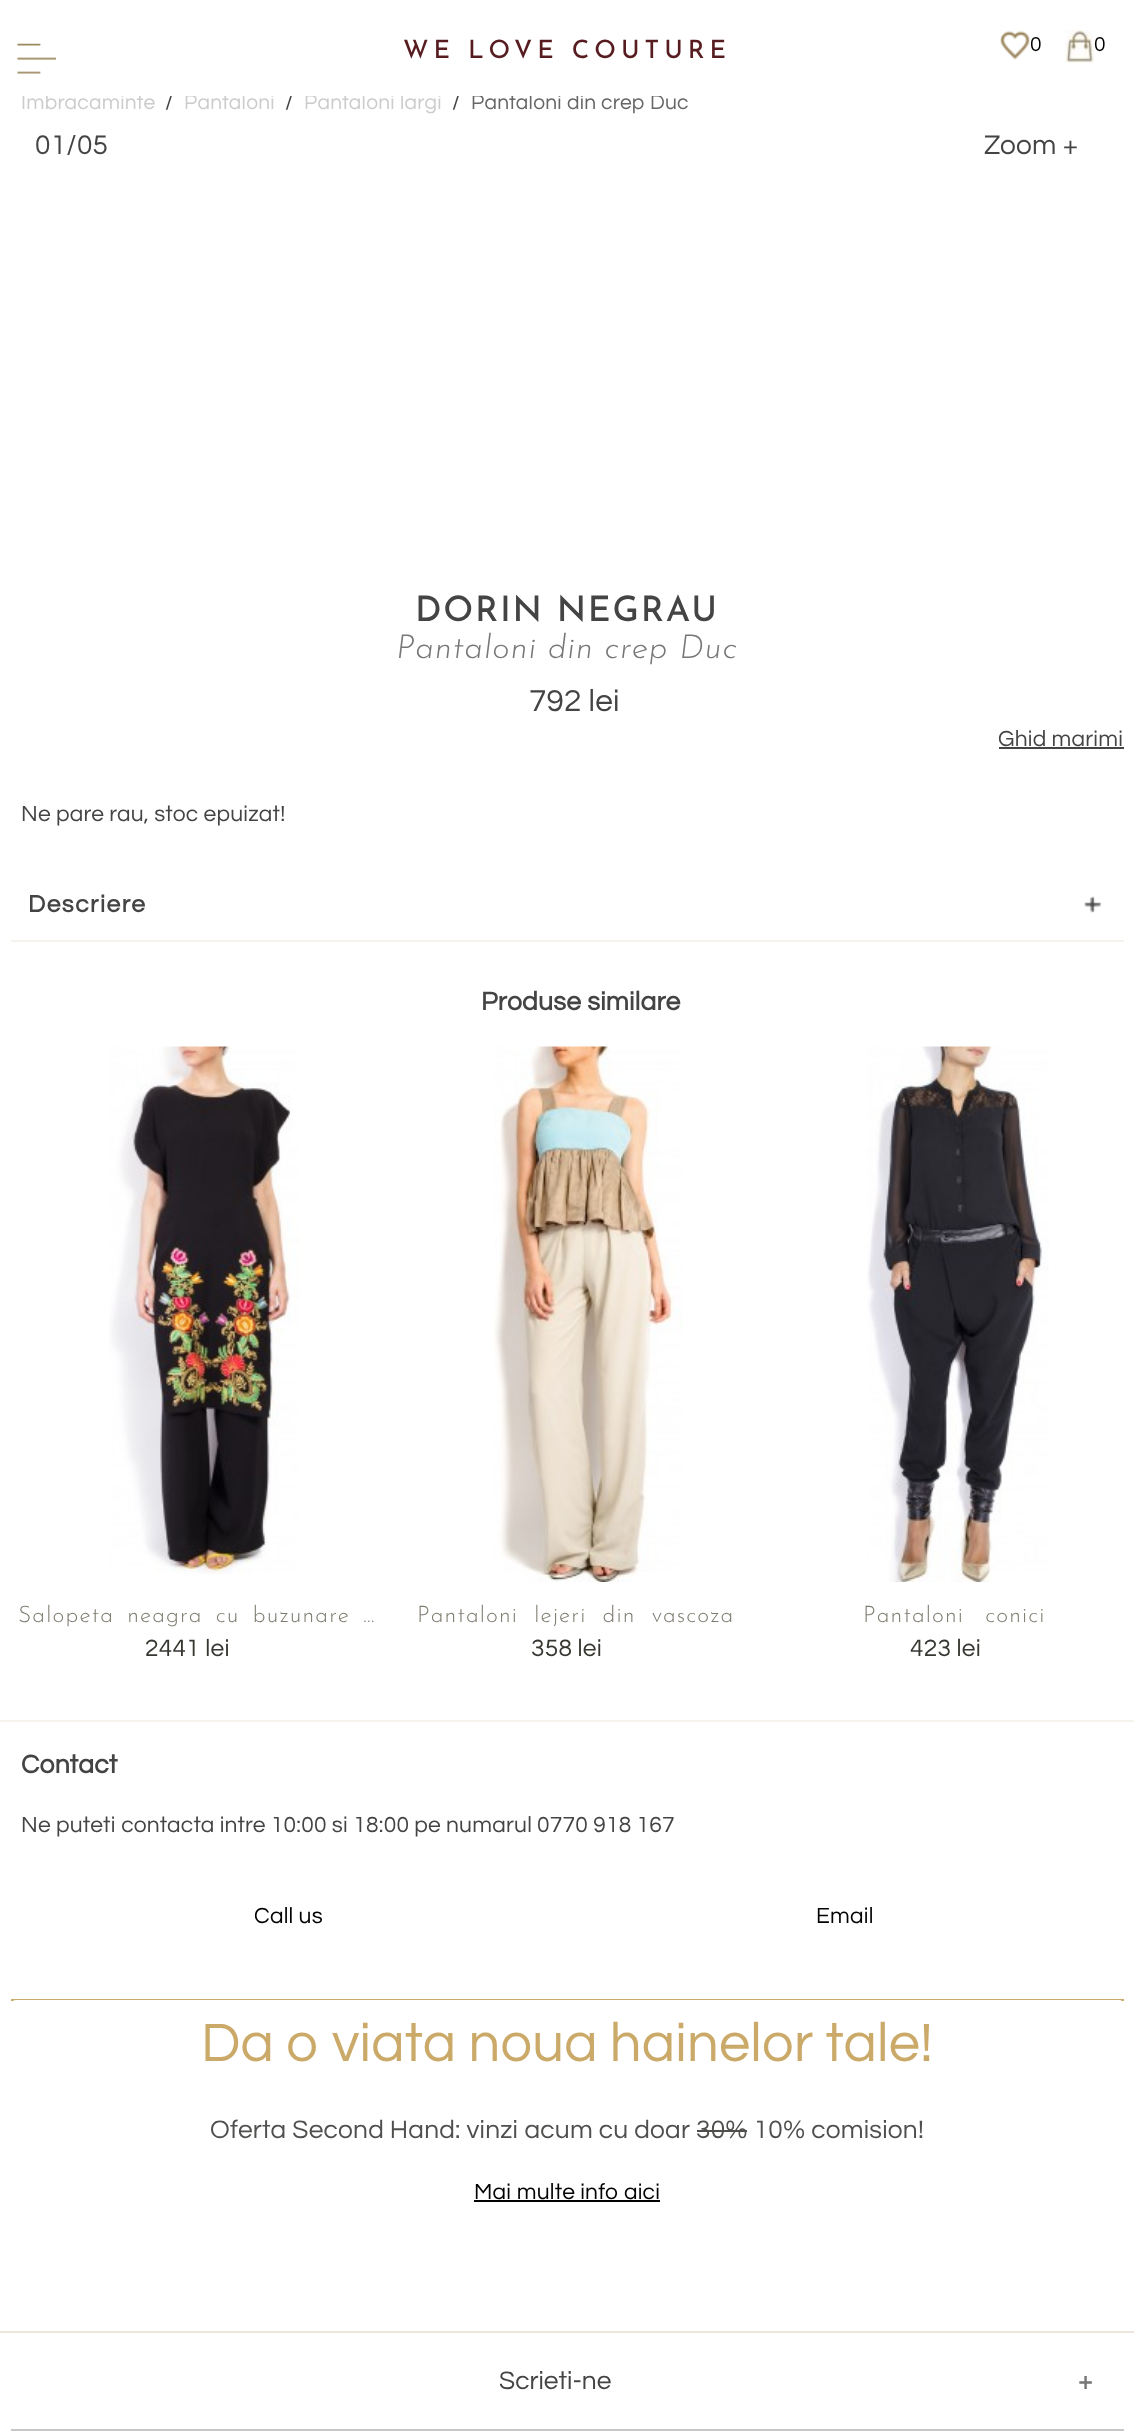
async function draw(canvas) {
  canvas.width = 1134;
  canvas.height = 2434;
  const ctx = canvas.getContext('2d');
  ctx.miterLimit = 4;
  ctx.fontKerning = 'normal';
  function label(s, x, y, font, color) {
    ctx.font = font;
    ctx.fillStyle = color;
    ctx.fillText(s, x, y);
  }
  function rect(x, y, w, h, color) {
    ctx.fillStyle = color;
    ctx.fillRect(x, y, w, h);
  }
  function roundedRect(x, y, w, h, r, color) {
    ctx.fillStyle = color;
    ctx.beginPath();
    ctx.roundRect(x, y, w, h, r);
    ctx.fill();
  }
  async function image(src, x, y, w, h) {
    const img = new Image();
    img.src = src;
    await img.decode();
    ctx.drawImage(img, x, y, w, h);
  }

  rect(0, 0, 1134, 2434, '#fff');
  ctx.letterSpacing = '0.23px';
  label('Imbracaminte', 21, 109, '21px Questrial', '#ccc');
  label('/', 165, 109, '22.75px Questrial', '#444');
  label('Pantaloni', 184, 109, '21px Questrial', '#ccc');
  label('/', 285, 109, '22.75px Questrial', '#444');
  label('Pantaloni largi', 304, 109, '21px Questrial', '#ccc');
  label('/', 452, 109, '22.75px Questrial', '#444');
  label('Pantaloni din crep Duc', 471, 109, '21px Questrial', '#666');
  rect(22, 93, 639, 3, '#fff');
  await image('assets/img1.png', 17, 43, 39, 31);
  ctx.letterSpacing = '5px';
  label('WE LOVE COUTURE', 403, 58, '500 25.25px Josefin Sans', '#571c20');
  await image('assets/img2.png', 1000, 30, 30, 30);
  ctx.letterSpacing = '0.23px';
  label('0', 1030, 51, '21px Questrial', '#000');
  await image('assets/img3.png', 1065, 30, 29, 33);
  label('0', 1094, 51, '21px Questrial', '#000');
  label('01/05', 35, 154, '28px Questrial', '#444');
  label('Zoom +', 984, 154, '28px Questrial', '#444');
  ctx.letterSpacing = '1.75px';
  label('DORIN NEGRAU', 415, 621, '500 35px Josefin Sans', '#444');
  ctx.letterSpacing = '0.9px';
  label('Pantaloni din crep Duc', 396, 658, 'italic 300 33.25px Josefin Sans', '#777');
  ctx.letterSpacing = '0.23px';
  label('792 lei', 529, 711, '31.5px Questrial', '#444');
  label('Ghid marimi', 998, 746, '22.75px Questrial', '#444');
  rect(999, 747, 125, 2, '#444');
  label('Ne pare rau, stoc epuizat!', 21, 821, '22.75px Questrial', '#444');
  rect(11, 940, 1113, 2, '#f6f3ec');
  await image('assets/img4.png', 1084, 895, 17, 18);
  ctx.letterSpacing = '1.5px';
  label('Descriere', 28, 912, 'bold 24.5px Questrial', '#444');
  rect(0, 1720, 1134, 2, '#f6f3ec');
  ctx.letterSpacing = '0.23px';
  label('Produse similare', 481, 1010, 'bold 26.5px Questrial', '#444');
  await image('assets/img5.png', 109, 1046, 191, 528);
  ctx.letterSpacing = '1.15px';
  ctx.wordSpacing = '5px';
  label('Salopeta neagra cu buzunare …', 18, 1622, '300 22.75px Josefin Sans', '#7f7c70');
  ctx.letterSpacing = '0.23px';
  ctx.wordSpacing = '0px';
  label('2441 lei', 145, 1656, '24.5px Questrial', '#373630');
  await image('assets/img6.png', 494, 1046, 189, 536);
  ctx.letterSpacing = '1.15px';
  ctx.wordSpacing = '8px';
  label('Pantaloni lejeri din vascoza', 417, 1622, '300 22.75px Josefin Sans', '#7f7c70');
  ctx.letterSpacing = '0.23px';
  ctx.wordSpacing = '0px';
  label('358 lei', 531, 1656, '24.5px Questrial', '#373630');
  await image('assets/img7.png', 867, 1046, 182, 536);
  ctx.letterSpacing = '1.15px';
  ctx.wordSpacing = '13px';
  label('Pantaloni conici', 863, 1622, '300 22.75px Josefin Sans', '#7f7c70');
  ctx.letterSpacing = '0.23px';
  ctx.wordSpacing = '0px';
  label('423 lei', 910, 1656, '24.5px Questrial', '#373630');
  label('Contact', 21, 1773, 'bold 26.5px Questrial', '#444');
  label('Ne puteti contacta intre 10:00 si 18:00 pe numarul 0770 918 167', 21, 1832, '22.75px Questrial', '#444');
  label('Call us', 254, 1923, '22.75px Questrial', '#000');
  label('Email', 816, 1923, '22.75px Questrial', '#000');
  rect(11, 1999, 1113, 2, '#cbaa69');
  roundedRect(11, 2000, 1113, 175, 5, '#fff');
  label('Da o viata noua hainelor tale!', 201, 2061, '56px Questrial', '#cbaa69');
  label('Oferta Second Hand: vinzi acum cu doar 30% 10% comision!', 210, 2138, '26.25px Questrial', '#504f4e');
  rect(697, 2130, 50, 2, '#504f4e');
  label('Mai multe info aici', 474, 2199, '22.75px Questrial', '#000');
  rect(474, 2200, 186, 2, '#000');
  rect(0, 2331, 1134, 2, '#ebe5dc');
  ctx.letterSpacing = '0px';
  label('Scrieti-ne', 499, 2389, '26.25px Questrial', '#444');
  label('+', 1078, 2389, 'bold 26.25px Questrial', '#777');
  rect(11, 2429, 1113, 2, '#c8c6c6');
}

draw(document.querySelector('canvas'));
